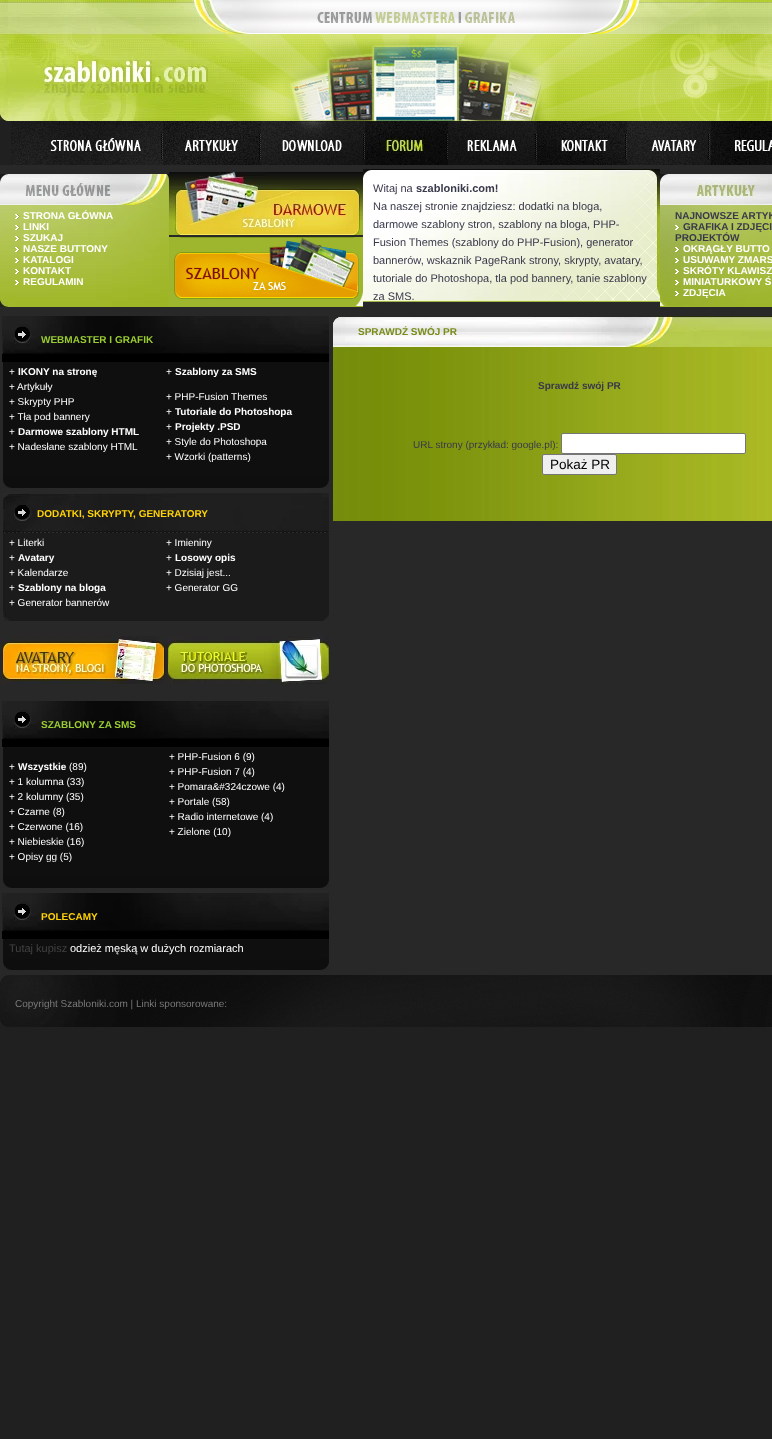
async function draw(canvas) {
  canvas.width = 772;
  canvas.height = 1439;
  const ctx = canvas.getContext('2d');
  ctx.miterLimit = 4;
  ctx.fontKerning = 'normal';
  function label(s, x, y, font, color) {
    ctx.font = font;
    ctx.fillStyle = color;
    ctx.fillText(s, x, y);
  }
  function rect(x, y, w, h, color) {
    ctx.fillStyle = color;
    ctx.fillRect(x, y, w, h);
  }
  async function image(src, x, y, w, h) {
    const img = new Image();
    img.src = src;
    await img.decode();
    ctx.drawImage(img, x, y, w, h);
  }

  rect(0, 0, 772, 1439, '#202020');
  rect(0, 165, 772, 810, '#282828');
  await image('assets/img1.png', 0, 0, 244, 121);
  await image('assets/img2.png', 244, 0, 344, 121);
  await image('assets/img3.png', 588, 0, 184, 121);
  await image('assets/img4.png', 0, 121, 163, 44);
  await image('assets/img5.png', 163, 121, 98, 44);
  await image('assets/img6.png', 261, 121, 104, 44);
  await image('assets/img7.png', 365, 121, 83, 44);
  await image('assets/img8.png', 448, 121, 89, 44);
  await image('assets/img9.png', 537, 121, 90, 44);
  await image('assets/img10.png', 627, 121, 84, 44);
  await image('assets/img11.png', 711, 121, 61, 44);
  await image('assets/img12.png', 0, 174, 169, 31);
  await image('assets/img13.png', 0, 205, 169, 102);
  await image('assets/img14.png', 15, 214, 5, 5);
  label('STRONA GŁÓWNA', 23, 219, 'bold 10px Liberation Sans', '#fff');
  await image('assets/img15.png', 15, 225, 5, 5);
  label('LINKI', 23, 230, 'bold 10px Liberation Sans', '#fff');
  await image('assets/img16.png', 15, 236, 5, 5);
  label('SZUKAJ', 23, 241, 'bold 10px Liberation Sans', '#fff');
  await image('assets/img17.png', 15, 247, 5, 5);
  label('NASZE BUTTONY', 23, 252, 'bold 10px Liberation Sans', '#fff');
  await image('assets/img18.png', 15, 258, 5, 5);
  label('KATALOGI', 23, 263, 'bold 10px Liberation Sans', '#fff');
  await image('assets/img19.png', 15, 269, 5, 5);
  label('KONTAKT', 23, 274, 'bold 10px Liberation Sans', '#fff');
  await image('assets/img20.png', 15, 280, 5, 5);
  label('REGULAMIN', 23, 285, 'bold 10px Liberation Sans', '#fff');
  await image('assets/img21.png', 169, 172, 194, 63);
  await image('assets/img22.png', 169, 237, 194, 70);
  await image('assets/img23.png', 363, 169, 297, 133);
  label('Witaj na', 373, 192, '11px Liberation Sans', '#38394b');
  label('szabloniki.com!', 416, 192, 'bold 11px Liberation Sans', '#38394b');
  label('Na naszej stronie znajdziesz: dodatki na bloga,', 373, 210, '11px Liberation Sans', '#38394b');
  label('darmowe szablony stron, szablony na bloga, PHP-', 373, 228, '11px Liberation Sans', '#38394b');
  label('Fusion Themes (szablony do PHP-Fusion), generator', 373, 246, '11px Liberation Sans', '#38394b');
  label('bannerów, wskaznik PageRank strony, skrypty, avatary,', 373, 264, '11px Liberation Sans', '#38394b');
  label('tutoriale do Photoshopa, tla pod bannery, tanie szablony', 373, 282, '11px Liberation Sans', '#38394b');
  label('za SMS.', 373, 300, '11px Liberation Sans', '#38394b');
  await image('assets/img24.png', 660, 174, 112, 31);
  await image('assets/img25.png', 660, 205, 112, 102);
  label('NAJNOWSZE ARTYK', 675, 219, 'bold 10px Liberation Sans', '#38394b');
  await image('assets/img26.png', 675, 225, 5, 5);
  label('GRAFIKA I ZDJĘCI', 683, 230, 'bold 10px Liberation Sans', '#38394b');
  label('PROJEKTÓW', 675, 241, 'bold 10px Liberation Sans', '#38394b');
  await image('assets/img27.png', 675, 247, 5, 5);
  label('OKRĄGŁY BUTTO', 683, 252, 'bold 10px Liberation Sans', '#fff');
  await image('assets/img28.png', 675, 258, 5, 5);
  label('USUWAMY ZMARS', 683, 263, 'bold 10px Liberation Sans', '#fff');
  await image('assets/img29.png', 675, 269, 5, 5);
  label('SKRÓTY KLAWISZ', 683, 274, 'bold 10px Liberation Sans', '#fff');
  await image('assets/img30.png', 675, 280, 4, 5);
  label('MINIATURKOWY Ś', 683, 285, 'bold 10px Liberation Sans', '#fff');
  await image('assets/img31.png', 675, 291, 5, 5);
  label('ZDJĘCIA', 683, 296, 'bold 10px Liberation Sans', '#fff');
  rect(2, 354, 327, 8, '#000');
  await image('assets/img32.png', 2, 316, 327, 38);
  label('WEBMASTER I GRAFIK', 41, 343, 'bold 10px Liberation Sans', '#9acd32');
  rect(3, 362, 326, 115, '#0f0f0f');
  label('+', 9, 375, '10px Liberation Sans', '#fff');
  label('IKONY na stronę', 18, 375, 'bold 10px Liberation Sans', '#fff');
  label('+', 9, 390, '10px Liberation Sans', '#fff');
  label('Artykuły', 17, 390, '10px Liberation Sans', '#fff');
  label('+ Skrypty PHP', 9, 405, '10px Liberation Sans', '#fff');
  label('+ Tła pod bannery', 9, 420, '10px Liberation Sans', '#fff');
  label('+', 9, 435, '10px Liberation Sans', '#fff');
  label('Darmowe szablony HTML', 18, 435, 'bold 10px Liberation Sans', '#fff');
  label('+ Nadesłane szablony HTML', 9, 450, '10px Liberation Sans', '#fff');
  label('+', 166, 375, '10px Liberation Sans', '#fff');
  label('Szablony za SMS', 175, 375, 'bold 10px Liberation Sans', '#fff');
  label('+ PHP-Fusion Themes', 166, 400, '10px Liberation Sans', '#fff');
  label('+', 166, 415, '10px Liberation Sans', '#fff');
  label('Tutoriale do Photoshopa', 175, 415, 'bold 10px Liberation Sans', '#fff');
  label('+', 166, 430, '10px Liberation Sans', '#fff');
  label('Projekty .PSD', 175, 430, 'bold 10px Liberation Sans', '#fff');
  label('+ Style do Photoshopa', 166, 445, '10px Liberation Sans', '#fff');
  label('+ Wzorki (patterns)', 166, 460, '10px Liberation Sans', '#fff');
  await image('assets/img33.png', 3, 477, 326, 11);
  await image('assets/img34.png', 3, 493, 326, 40);
  label('DODATKI, SKRYPTY, GENERATORY', 37, 517, 'bold 10px Liberation Sans', '#ffd304');
  rect(3, 533, 326, 80, '#1b1b1b');
  label('+ Literki', 9, 546, '10px Liberation Sans', '#fff');
  label('+', 9, 561, '10px Liberation Sans', '#fff');
  label('Avatary', 18, 561, 'bold 10px Liberation Sans', '#fff');
  label('+ Kalendarze', 9, 576, '10px Liberation Sans', '#fff');
  label('+', 9, 591, '10px Liberation Sans', '#fff');
  label('Szablony na bloga', 18, 591, 'bold 10px Liberation Sans', '#fff');
  label('+ Generator bannerów', 9, 606, '10px Liberation Sans', '#fff');
  label('+ Imieniny', 166, 546, '10px Liberation Sans', '#fff');
  label('+', 166, 561, '10px Liberation Sans', '#fff');
  label('Losowy opis', 175, 561, 'bold 10px Liberation Sans', '#fff');
  label('+ Dzisiaj jest...', 166, 576, '10px Liberation Sans', '#fff');
  label('+ Generator GG', 166, 591, '10px Liberation Sans', '#fff');
  await image('assets/img35.png', 3, 613, 326, 8);
  await image('assets/img36.png', 2, 636, 166, 48);
  await image('assets/img37.png', 168, 636, 161, 48);
  rect(2, 739, 327, 8, '#000');
  await image('assets/img32.png', 2, 701, 327, 38);
  label('SZABLONY ZA SMS', 41, 728, 'bold 10px Liberation Sans', '#9acd32');
  rect(3, 747, 326, 130, '#0f0f0f');
  label('+', 9, 770, '10px Liberation Sans', '#fff');
  label('Wszystkie', 18, 770, 'bold 10px Liberation Sans', '#fff');
  label('(89)', 69, 770, '10px Liberation Sans', '#fff');
  label('+ 1 kolumna (33)', 9, 785, '10px Liberation Sans', '#fff');
  label('+ 2 kolumny (35)', 9, 800, '10px Liberation Sans', '#fff');
  label('+ Czarne (8)', 9, 815, '10px Liberation Sans', '#fff');
  label('+ Czerwone (16)', 9, 830, '10px Liberation Sans', '#fff');
  label('+ Niebieskie (16)', 9, 845, '10px Liberation Sans', '#fff');
  label('+ Opisy gg (5)', 9, 860, '10px Liberation Sans', '#fff');
  label('+ PHP-Fusion 6 (9)', 169, 760, '10px Liberation Sans', '#fff');
  label('+ PHP-Fusion 7 (4)', 169, 775, '10px Liberation Sans', '#fff');
  label('+ Pomara&#324czowe (4)', 169, 790, '10px Liberation Sans', '#fff');
  label('+ Portale (58)', 169, 805, '10px Liberation Sans', '#fff');
  label('+ Radio internetowe (4)', 169, 820, '10px Liberation Sans', '#fff');
  label('+ Zielone (10)', 169, 835, '10px Liberation Sans', '#fff');
  await image('assets/img33.png', 3, 877, 326, 11);
  rect(2, 931, 327, 8, '#000');
  await image('assets/img32.png', 2, 893, 327, 38);
  label('POLECAMY', 41, 920, 'bold 10px Liberation Sans', '#ffd304');
  rect(3, 939, 326, 20, '#0f0f0f');
  label('Tutaj kupisz', 9, 952, '11px Liberation Sans', '#424242');
  label('odzież męską w dużych rozmiarach', 70, 952, '11px Liberation Sans', '#fff');
  await image('assets/img33.png', 3, 959, 326, 11);
  await image('assets/img38.png', 333, 316, 439, 31);
  label('SPRAWDŹ SWÓJ PR', 358, 335, 'bold 10px Liberation Sans', '#788c19');
  await image('assets/img39.png', 333, 347, 439, 174);
  label('Sprawdź swój PR', 538, 389, 'bold 10px Liberation Sans', '#38394b');
  label('URL strony (przykład: google.pl):', 413, 448, '10px Liberation Sans', '#38394b');
  ctx.fillStyle = '#fff';
  ctx.beginPath();
  ctx.roundRect(561.5, 433.5, 184, 20, 1.5);
  ctx.fill();
  ctx.strokeStyle = '#767676';
  ctx.stroke();
  ctx.fillStyle = '#efefef';
  ctx.beginPath();
  ctx.roundRect(542.5, 454.5, 74, 20, 1.5);
  ctx.fill();
  ctx.stroke();
  label('Pokaż PR', 550, 469, '13.5px Liberation Sans', '#000');
  await image('assets/img40.png', 0, 975, 772, 52);
  label('Copyright Szabloniki.com | Linki sponsorowane:', 15, 1007, '10px Liberation Sans', '#797979');
}

draw(document.querySelector('canvas'));
